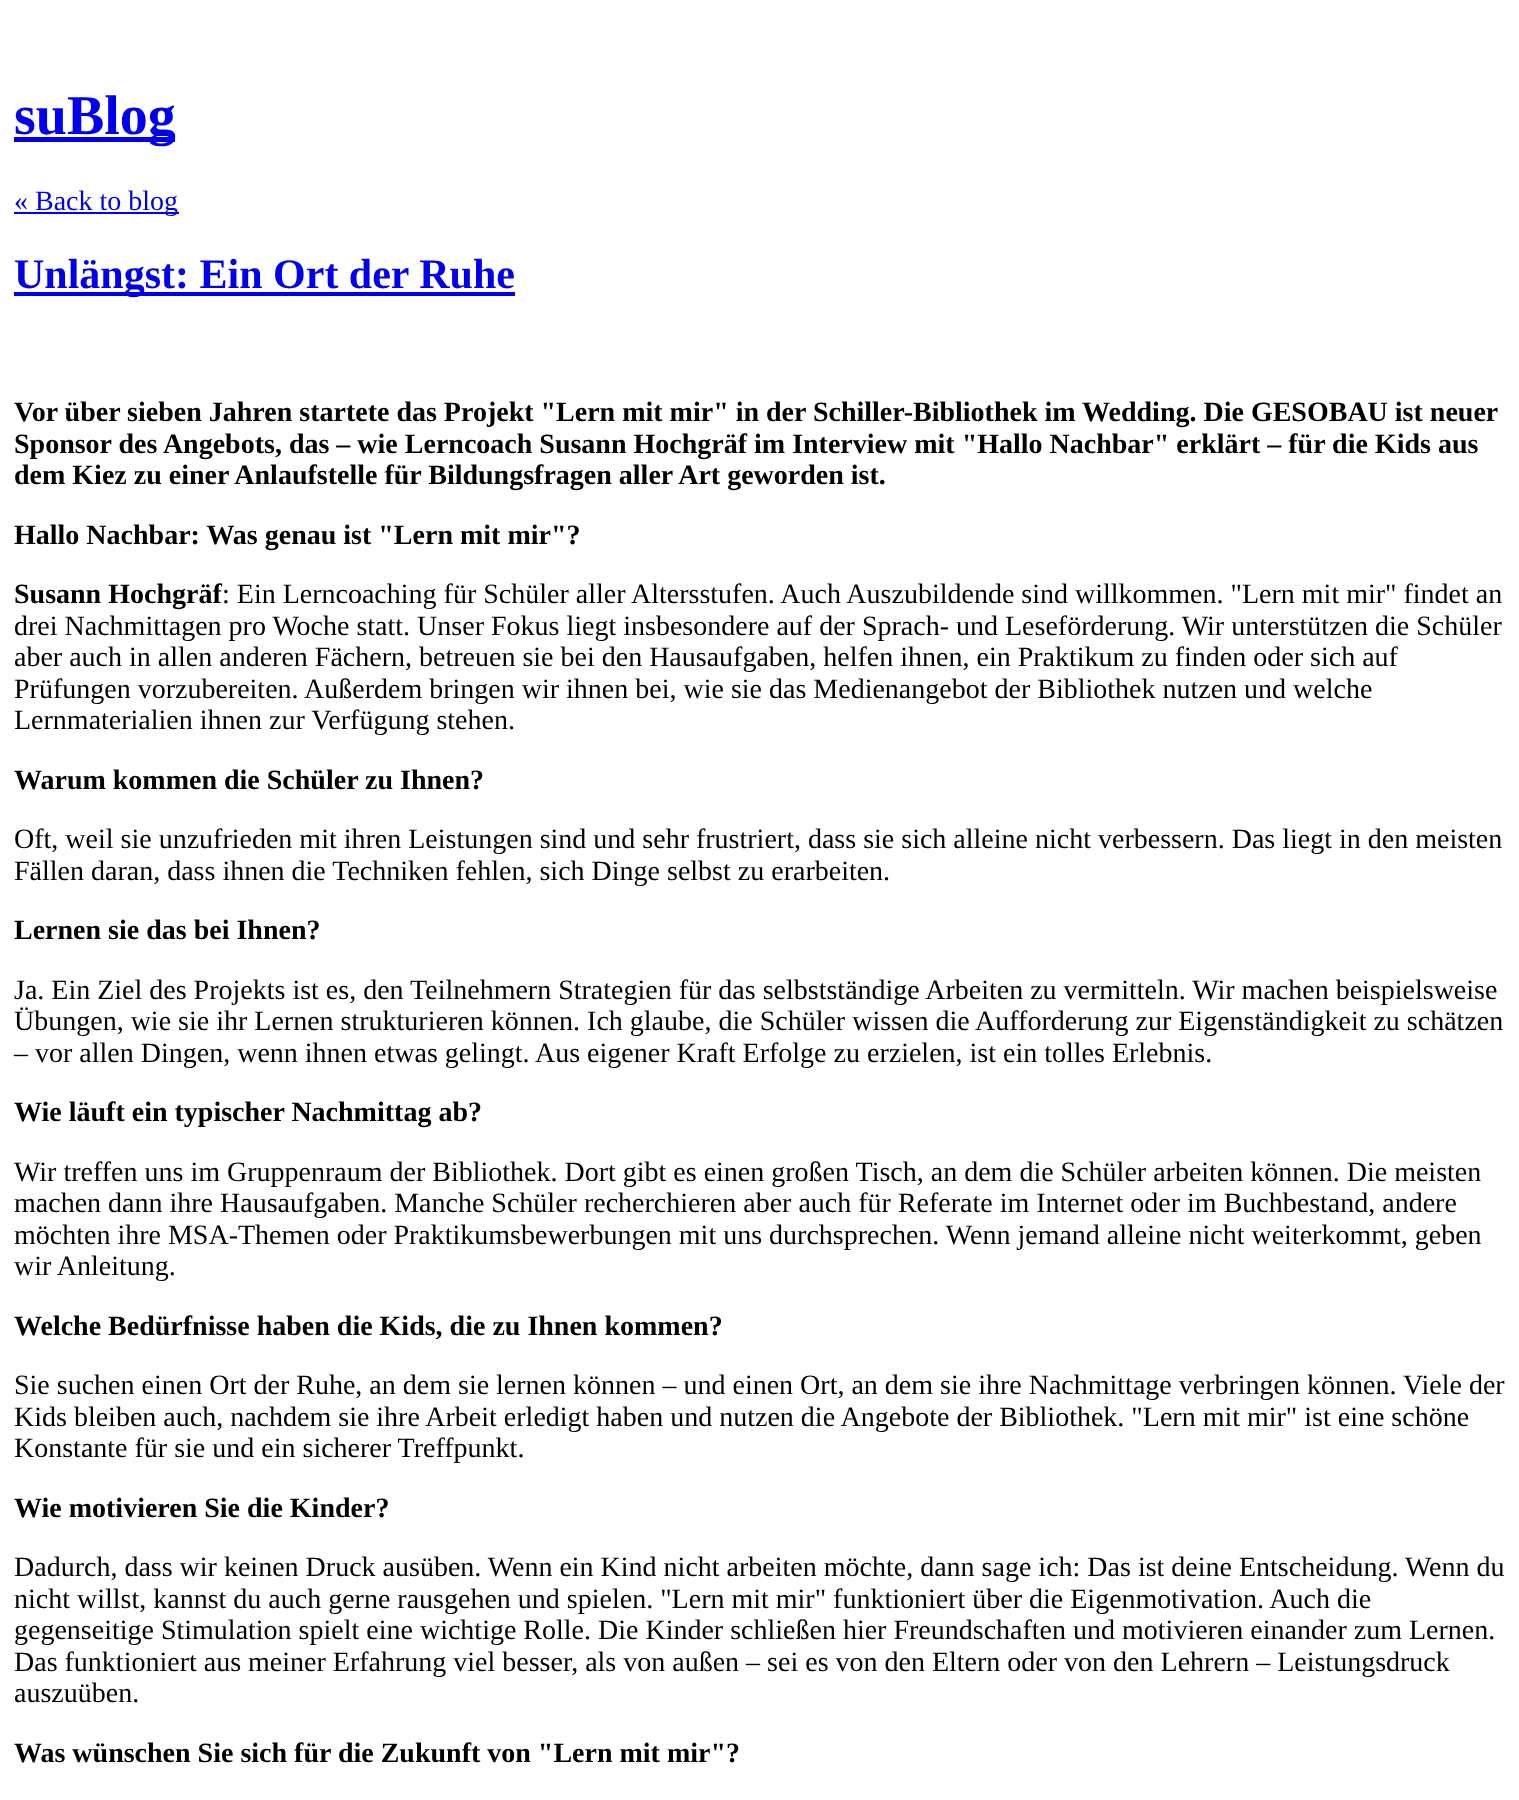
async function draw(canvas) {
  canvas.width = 1519;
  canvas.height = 1800;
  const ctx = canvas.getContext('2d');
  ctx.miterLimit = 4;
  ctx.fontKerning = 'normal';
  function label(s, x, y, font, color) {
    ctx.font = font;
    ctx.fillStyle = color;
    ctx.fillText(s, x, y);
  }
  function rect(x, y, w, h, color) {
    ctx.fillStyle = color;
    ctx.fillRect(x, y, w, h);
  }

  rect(0, 0, 1519, 1800, '#fff');
  rect(14, 137, 161, 5, '#00e');
  label('suBlog', 14, 134, 'bold 56px Liberation Serif', '#00e');
  rect(14, 212, 165, 2, '#00e');
  label('« Back to blog', 14, 210, '28px Liberation Serif', '#00e');
  rect(14, 292, 501, 4, '#00e');
  label('Unlängst: Ein Ort der Ruhe', 14, 288, 'bold 42px Liberation Serif', '#00e');
  label('Vor über sieben Jahren startete das Projekt "Lern mit mir" in der Schiller-Bibliothek im Wedding. Die GESOBAU ist neuer', 14, 421, 'bold 28px Liberation Serif', '#000');
  label('Sponsor des Angebots, das – wie Lerncoach Susann Hochgräf im Interview mit "Hallo Nachbar" erklärt – für die Kids aus', 14, 453, 'bold 28px Liberation Serif', '#000');
  label('dem Kiez zu einer Anlaufstelle für Bildungsfragen aller Art geworden ist.', 14, 484, 'bold 28px Liberation Serif', '#000');
  label('Hallo Nachbar: Was genau ist "Lern mit mir"?', 14, 544, 'bold 28px Liberation Serif', '#000');
  label('Susann Hochgräf', 14, 603, 'bold 28px Liberation Serif', '#000');
  label(': Ein Lerncoaching für Schüler aller Altersstufen. Auch Auszubildende sind willkommen. "Lern mit mir" findet an', 222, 603, '28px Liberation Serif', '#000');
  label('drei Nachmittagen pro Woche statt. Unser Fokus liegt insbesondere auf der Sprach- und Leseförderung. Wir unterstützen die Schüler', 14, 635, '28px Liberation Serif', '#000');
  label('aber auch in allen anderen Fächern, betreuen sie bei den Hausaufgaben, helfen ihnen, ein Praktikum zu finden oder sich auf', 14, 666, '28px Liberation Serif', '#000');
  label('Prüfungen vorzubereiten. Außerdem bringen wir ihnen bei, wie sie das Medienangebot der Bibliothek nutzen und welche', 14, 698, '28px Liberation Serif', '#000');
  label('Lernmaterialien ihnen zur Verfügung stehen.', 14, 729, '28px Liberation Serif', '#000');
  label('Warum kommen die Schüler zu Ihnen?', 14, 789, 'bold 28px Liberation Serif', '#000');
  label('Oft, weil sie unzufrieden mit ihren Leistungen sind und sehr frustriert, dass sie sich alleine nicht verbessern. Das liegt in den meisten', 14, 848, '28px Liberation Serif', '#000');
  label('Fällen daran, dass ihnen die Techniken fehlen, sich Dinge selbst zu erarbeiten.', 14, 880, '28px Liberation Serif', '#000');
  label('Lernen sie das bei Ihnen?', 14, 939, 'bold 28px Liberation Serif', '#000');
  label('Ja. Ein Ziel des Projekts ist es, den Teilnehmern Strategien für das selbstständige Arbeiten zu vermitteln. Wir machen beispielsweise', 14, 999, '28px Liberation Serif', '#000');
  label('Übungen, wie sie ihr Lernen strukturieren können. Ich glaube, die Schüler wissen die Aufforderung zur Eigenständigkeit zu schätzen', 14, 1030, '28px Liberation Serif', '#000');
  label('– vor allen Dingen, wenn ihnen etwas gelingt. Aus eigener Kraft Erfolge zu erzielen, ist ein tolles Erlebnis.', 14, 1062, '28px Liberation Serif', '#000');
  label('Wie läuft ein typischer Nachmittag ab?', 14, 1121, 'bold 28px Liberation Serif', '#000');
  label('Wir treffen uns im Gruppenraum der Bibliothek. Dort gibt es einen großen Tisch, an dem die Schüler arbeiten können. Die meisten', 14, 1181, '28px Liberation Serif', '#000');
  label('machen dann ihre Hausaufgaben. Manche Schüler recherchieren aber auch für Referate im Internet oder im Buchbestand, andere', 14, 1212, '28px Liberation Serif', '#000');
  label('möchten ihre MSA-Themen oder Praktikumsbewerbungen mit uns durchsprechen. Wenn jemand alleine nicht weiterkommt, geben', 14, 1244, '28px Liberation Serif', '#000');
  label('wir Anleitung.', 14, 1275, '28px Liberation Serif', '#000');
  label('Welche Bedürfnisse haben die Kids, die zu Ihnen kommen?', 14, 1335, 'bold 28px Liberation Serif', '#000');
  label('Sie suchen einen Ort der Ruhe, an dem sie lernen können – und einen Ort, an dem sie ihre Nachmittage verbringen können. Viele der', 14, 1394, '28px Liberation Serif', '#000');
  label('Kids bleiben auch, nachdem sie ihre Arbeit erledigt haben und nutzen die Angebote der Bibliothek. "Lern mit mir" ist eine schöne', 14, 1426, '28px Liberation Serif', '#000');
  label('Konstante für sie und ein sicherer Treffpunkt.', 14, 1457, '28px Liberation Serif', '#000');
  label('Wie motivieren Sie die Kinder?', 14, 1517, 'bold 28px Liberation Serif', '#000');
  label('Dadurch, dass wir keinen Druck ausüben. Wenn ein Kind nicht arbeiten möchte, dann sage ich: Das ist deine Entscheidung. Wenn du', 14, 1576, '28px Liberation Serif', '#000');
  label('nicht willst, kannst du auch gerne rausgehen und spielen. "Lern mit mir" funktioniert über die Eigenmotivation. Auch die', 14, 1608, '28px Liberation Serif', '#000');
  label('gegenseitige Stimulation spielt eine wichtige Rolle. Die Kinder schließen hier Freundschaften und motivieren einander zum Lernen.', 14, 1639, '28px Liberation Serif', '#000');
  label('Das funktioniert aus meiner Erfahrung viel besser, als von außen – sei es von den Eltern oder von den Lehrern – Leistungsdruck', 14, 1671, '28px Liberation Serif', '#000');
  label('auszuüben.', 14, 1702, '28px Liberation Serif', '#000');
  label('Was wünschen Sie sich für die Zukunft von "Lern mit mir"?', 14, 1762, 'bold 28px Liberation Serif', '#000');
}

draw(document.querySelector('canvas'));
